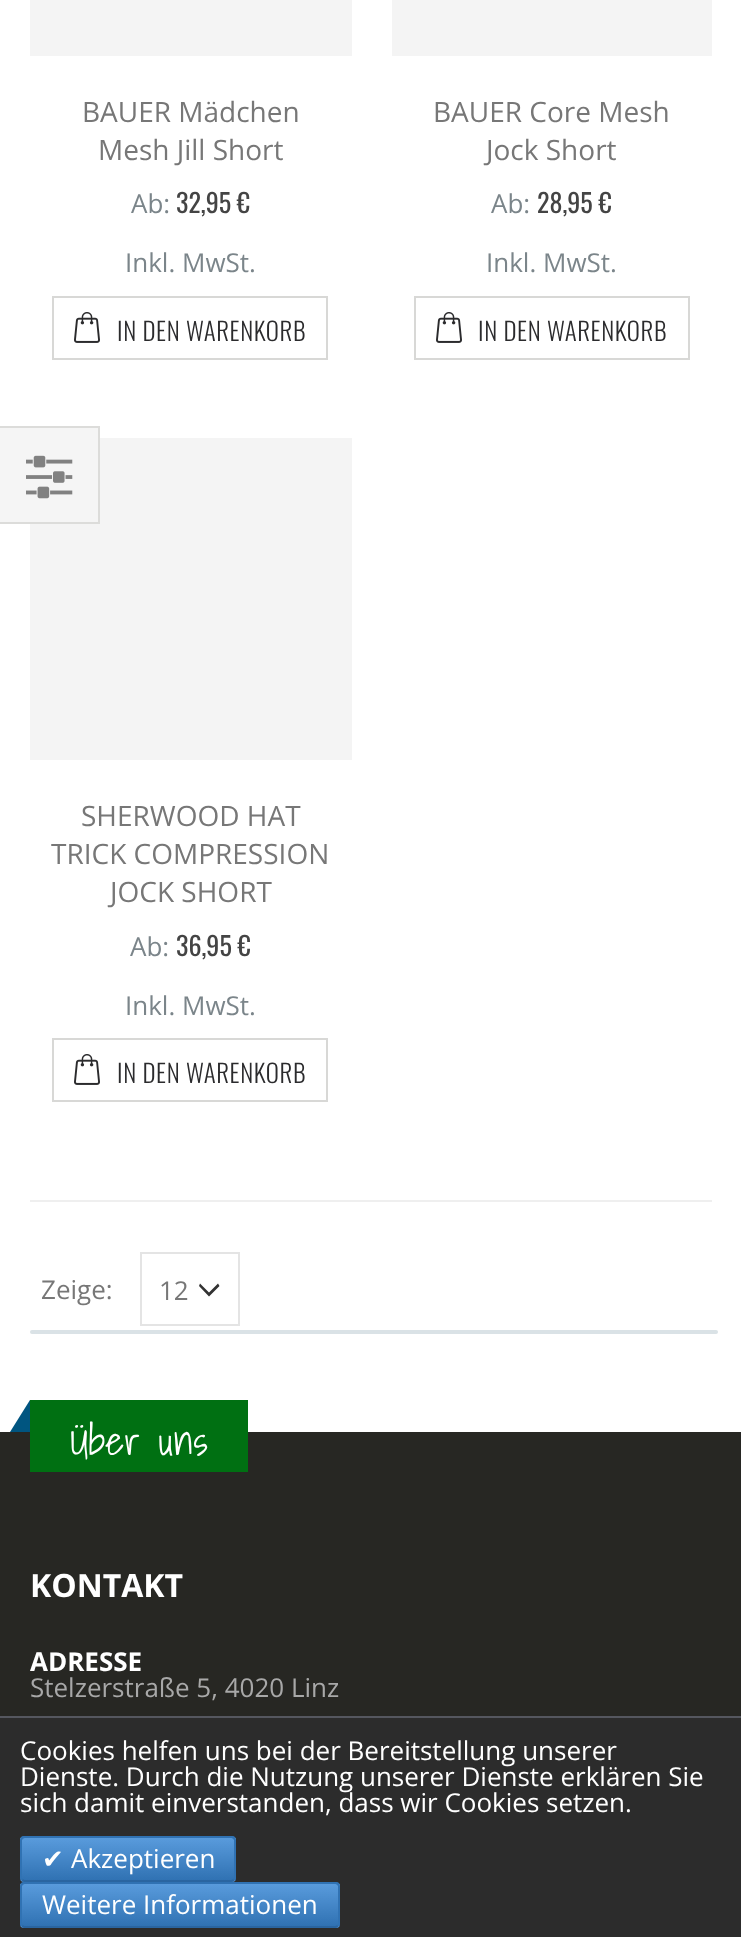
async function draw(canvas) {
  canvas.width = 741;
  canvas.height = 1937;
  const ctx = canvas.getContext('2d');
  ctx.miterLimit = 4;
  ctx.fontKerning = 'normal';
  function label(s, x, y, font, color) {
    ctx.font = font;
    ctx.fillStyle = color;
    ctx.fillText(s, x, y);
  }
  function rect(x, y, w, h, color) {
    ctx.fillStyle = color;
    ctx.fillRect(x, y, w, h);
  }
  function roundedRect(x, y, w, h, r, color) {
    ctx.fillStyle = color;
    ctx.beginPath();
    ctx.roundRect(x, y, w, h, r);
    ctx.fill();
  }
  async function image(src, x, y, w, h) {
    const img = new Image();
    img.src = src;
    await img.decode();
    ctx.drawImage(img, x, y, w, h);
  }
  let gradient, path;

  rect(0, 0, 741, 1937, '#fff');
  rect(30, 0, 322, 56, '#f4f4f4');
  label('BAUER Mädchen', 82, 122, '28px Open Sans', '#777');
  label('Mesh Jill Short', 98, 160, '28px Open Sans', '#777');
  label('Ab:', 131, 213, '26px Open Sans', '#7b858a');
  label('32,95 €', 176, 213, '26px Oswald', '#444');
  label('Inkl. MwSt.', 125, 272, '26px Open Sans', '#7b858a');
  ctx.strokeStyle = '#d8d8d6';
  ctx.lineWidth = 2;
  ctx.strokeRect(53, 297, 274, 62);
  await image('assets/img1.png', 74, 312, 26, 31);
  ctx.letterSpacing = '0.6px';
  label('IN DEN WARENKORB', 117, 341, '300 25px Oswald', '#2b2b2d');
  rect(392, 0, 320, 56, '#f4f4f4');
  ctx.letterSpacing = '0px';
  label('BAUER Core Mesh', 433, 122, '28px Open Sans', '#777');
  label('Jock Short', 486, 160, '28px Open Sans', '#777');
  label('Ab:', 491, 213, '26px Open Sans', '#7b858a');
  label('28,95 €', 537, 213, '26px Oswald', '#444');
  label('Inkl. MwSt.', 486, 272, '26px Open Sans', '#7b858a');
  ctx.strokeRect(415, 297, 274, 62);
  await image('assets/img1.png', 436, 312, 26, 31);
  ctx.letterSpacing = '0.6px';
  label('IN DEN WARENKORB', 478, 341, '300 25px Oswald', '#2b2b2d');
  rect(30, 438, 322, 322, '#f4f4f4');
  ctx.letterSpacing = '0px';
  label('SHERWOOD HAT', 81, 826, '28px Open Sans', '#777');
  label('TRICK COMPRESSION', 51, 864, '28px Open Sans', '#777');
  label('JOCK SHORT', 110, 902, '28px Open Sans', '#777');
  label('Ab:', 130, 956, '26px Open Sans', '#7b858a');
  label('36,95 €', 176, 956, '26px Oswald', '#444');
  label('Inkl. MwSt.', 125, 1015, '26px Open Sans', '#7b858a');
  ctx.strokeRect(53, 1039, 274, 62);
  await image('assets/img1.png', 74, 1054, 26, 31);
  ctx.letterSpacing = '0.6px';
  label('IN DEN WARENKORB', 117, 1083, '300 25px Oswald', '#2b2b2d');
  rect(30, 1200, 682, 2, '#efefef');
  ctx.letterSpacing = '0px';
  label('Zeige:', 41, 1299, '26px Open Sans', '#777');
  ctx.fillStyle = '#333';
  path = new Path2D('M209.5 1296L219.5 1286L218 1283.5L209 1292.5L200 1283.5L199 1286L209 1296.5Z');
  ctx.fill(path, 'evenodd');
  ctx.strokeStyle = '#e4e4e4';
  ctx.strokeRect(141, 1253, 98, 72);
  label('12', 159, 1300, '26px Open Sans', '#777');
  ctx.fillStyle = '#f5f5f5';
  ctx.beginPath();
  ctx.rect(-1, 427, 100, 96);
  ctx.fill();
  ctx.strokeStyle = '#dcdcda';
  ctx.stroke();
  await image('assets/img2.png', 26, 455, 47, 44);
  roundedRect(30, 1330, 688, 4, 2, '#dae2e6');
  rect(0, 1432, 741, 284, '#272723');
  rect(30, 1400, 218, 72, '#007012');
  ctx.fillStyle = '#005580';
  path = new Path2D('M30 1400V1432H10Z');
  ctx.fill(path);
  label('Über uns', 70, 1455, '300 40px Shadows Into Light', '#fff');
  label('KONTAKT', 30, 1597, 'bold 32px Open Sans', '#fff');
  label('ADRESSE', 30, 1671, 'bold 26px Open Sans', '#fff');
  label('Stelzerstraße 5, 4020 Linz', 30, 1697, '26px Open Sans', '#a8a8a8');
  rect(0, 1718, 741, 219, '#2c2c2c');
  rect(0, 1716, 741, 2, '#55575f');
  label('Cookies helfen uns bei der Bereitstellung unserer', 20, 1760, '26px Open Sans', '#fff');
  label('Dienste. Durch die Nutzung unserer Dienste erklären Sie', 20, 1786, '26px Open Sans', '#fff');
  label('sich damit einverstanden, dass wir Cookies setzen.', 20, 1812, '26px Open Sans', '#fff');
  ctx.save();
  ctx.beginPath();
  ctx.roundRect(20, 1836, 216, 46, 4);
  ctx.clip();
  gradient = ctx.createLinearGradient(128, 1796, 128, 1838);
  gradient.addColorStop(0, '#599bdc');
  gradient.addColorStop(1, '#3072b3');
  ctx.fillStyle = gradient;
  ctx.fillRect(20, 1836, 216, 2);
  gradient = ctx.createLinearGradient(128, 1838, 128, 1880);
  gradient.addColorStop(0, '#599bdc');
  gradient.addColorStop(1, '#3072b3');
  ctx.fillStyle = gradient;
  ctx.fillRect(20, 1838, 216, 42);
  gradient = ctx.createLinearGradient(128, 1880, 128, 1922);
  gradient.addColorStop(0, '#599bdc');
  gradient.addColorStop(1, '#3072b3');
  ctx.fillStyle = gradient;
  ctx.fillRect(20, 1880, 216, 2);
  ctx.restore();
  path = new Path2D('M234 1880L232 1881H24L22 1880');
  ctx.strokeStyle = '#2a65a0';
  ctx.stroke(path);
  path = new Path2D('M22 1880L21 1878V1840L22 1838L24 1837H232L234 1838L235 1840V1878L234 1880');
  ctx.strokeStyle = '#3072b3';
  ctx.stroke(path);
  label('✔', 42, 1868, '26px DejaVu Sans', '#fff');
  label('Akzeptieren', 71, 1868, '26px Open Sans', '#fff');
  ctx.save();
  ctx.beginPath();
  ctx.roundRect(20, 1882, 320, 46, 4);
  ctx.clip();
  gradient = ctx.createLinearGradient(180, 1842, 180, 1884);
  gradient.addColorStop(0, '#599bdc');
  gradient.addColorStop(1, '#3072b3');
  ctx.fillStyle = gradient;
  ctx.fillRect(20, 1882, 320, 2);
  gradient = ctx.createLinearGradient(180, 1884, 180, 1926);
  gradient.addColorStop(0, '#599bdc');
  gradient.addColorStop(1, '#3072b3');
  ctx.fillStyle = gradient;
  ctx.fillRect(20, 1884, 320, 42);
  gradient = ctx.createLinearGradient(180, 1926, 180, 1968);
  gradient.addColorStop(0, '#599bdc');
  gradient.addColorStop(1, '#3072b3');
  ctx.fillStyle = gradient;
  ctx.fillRect(20, 1926, 320, 2);
  ctx.restore();
  path = new Path2D('M338 1926L336 1927H24L22 1926');
  ctx.strokeStyle = '#2a65a0';
  ctx.stroke(path);
  path = new Path2D('M22 1926L21 1924V1886L22 1884L24 1883H336L338 1884L339 1886V1924L338 1926');
  ctx.strokeStyle = '#3072b3';
  ctx.stroke(path);
  label('Weitere Informationen', 42, 1914, '26px Open Sans', '#fff');
}

draw(document.querySelector('canvas'));
